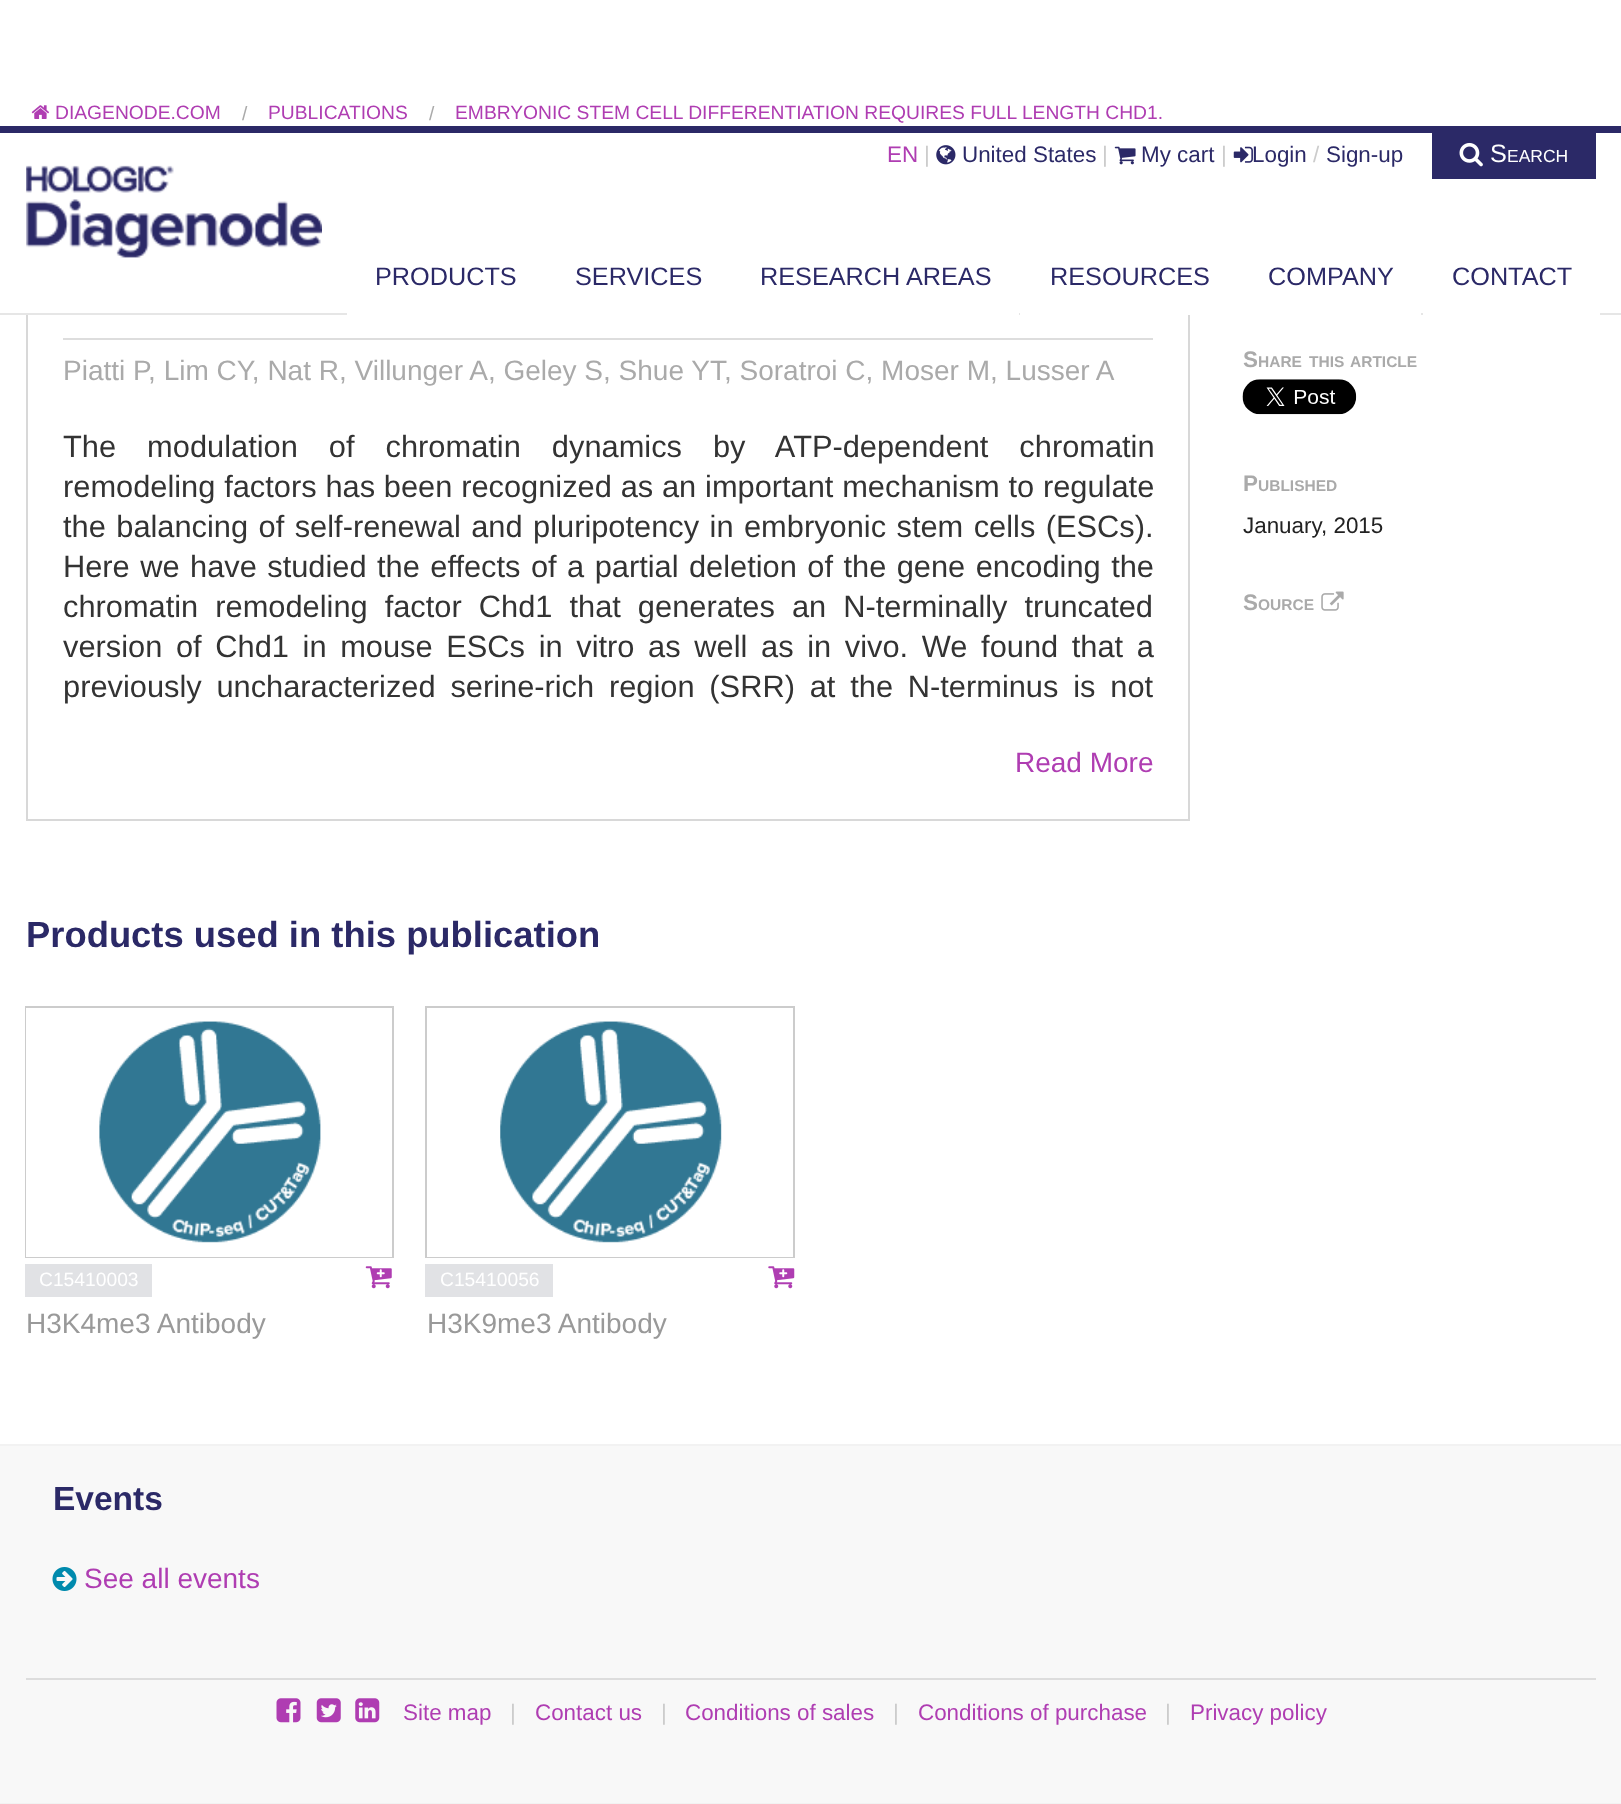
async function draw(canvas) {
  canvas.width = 1621;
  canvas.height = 1804;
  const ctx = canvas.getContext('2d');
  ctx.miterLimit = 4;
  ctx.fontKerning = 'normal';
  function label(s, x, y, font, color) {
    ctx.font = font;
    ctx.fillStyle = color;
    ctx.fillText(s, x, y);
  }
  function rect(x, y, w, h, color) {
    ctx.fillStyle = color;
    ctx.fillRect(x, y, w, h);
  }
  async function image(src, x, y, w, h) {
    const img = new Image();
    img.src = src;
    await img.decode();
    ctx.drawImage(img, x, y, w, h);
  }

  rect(0, 0, 1621, 1804, '#fff');
  await image('assets/img1.png', 31, 105, 19, 14);
  label('DIAGENODE.COM', 55, 119, '19.25px Liberation Sans', '#af3db2');
  label('/', 242, 120, '19.25px Liberation Sans', '#aaa');
  label('PUBLICATIONS', 268, 119, '19.25px Liberation Sans', '#af3db2');
  label('/', 429, 120, '19.25px Liberation Sans', '#aaa');
  label('EMBRYONIC STEM CELL DIFFERENTIATION REQUIRES FULL LENGTH CHD1.', 455, 119, '19.25px Liberation Sans', '#af3db2');
  ctx.strokeStyle = '#d8d8d8';
  ctx.lineWidth = 2;
  ctx.strokeRect(27, 178, 1162, 642);
  rect(63, 338, 1090, 2, '#ddd');
  label('Piatti P, Lim CY, Nat R, Villunger A, Geley S, Shue YT, Soratroi C, Moser M, Lusser A', 63, 380, '28px Liberation Sans', '#aaa');
  ctx.wordSpacing = '22.5px';
  label('The modulation of chromatin dynamics by ATP-dependent chromatin', 63, 457, '30.8px Liberation Sans', '#333');
  ctx.wordSpacing = '0.25px';
  label('remodeling factors has been recognized as an important mechanism to regulate', 63, 497, '30.8px Liberation Sans', '#333');
  ctx.wordSpacing = '1.9px';
  label('the balancing of self-renewal and pluripotency in embryonic stem cells (ESCs).', 63, 537, '30.8px Liberation Sans', '#333');
  label('Here we have studied the effects of a partial deletion of the gene encoding the', 63, 577, '30.8px Liberation Sans', '#333');
  ctx.wordSpacing = '8.5px';
  label('chromatin remodeling factor Chd1 that generates an N-terminally truncated', 63, 617, '30.8px Liberation Sans', '#333');
  ctx.wordSpacing = '5.1px';
  label('version of Chd1 in mouse ESCs in vitro as well as in vivo. We found that a', 63, 657, '30.8px Liberation Sans', '#333');
  ctx.save();
  ctx.beginPath();
  ctx.rect(63, 427, 1090, 284);
  ctx.clip();
  ctx.wordSpacing = '6.25px';
  label('previously uncharacterized serine-rich region (SRR) at the N-terminus is not', 63, 697, '30.8px Liberation Sans', '#333');
  ctx.restore();
  ctx.wordSpacing = '0px';
  label('Read More', 1015, 772, '28px Liberation Sans', '#af3db2');
  label('S', 1243, 367, 'bold 22.4px Liberation Sans', '#aaa');
  label('HARE', 1258, 367, 'bold 15.5px Liberation Sans', '#aaa');
  label('THIS', 1309, 367, 'bold 15.5px Liberation Sans', '#aaa');
  label('ARTICLE', 1350, 367, 'bold 15.5px Liberation Sans', '#aaa');
  await image('assets/img2.png', 1242, 379, 115, 36);
  label('P', 1243, 491, 'bold 22.4px Liberation Sans', '#aaa');
  label('UBLISHED', 1258, 491, 'bold 15.5px Liberation Sans', '#aaa');
  label('January, 2015', 1243, 533, '22.4px Liberation Sans', '#222');
  label('S', 1243, 610, 'bold 22.4px Liberation Sans', '#aaa');
  label('OURCE', 1258, 610, 'bold 15.5px Liberation Sans', '#aaa');
  await image('assets/img3.png', 1321, 591, 23, 20);
  label('Products used in this publication', 26, 947, 'bold 36.4px Liberation Sans', '#2b2967');
  ctx.strokeStyle = '#ccc';
  ctx.strokeRect(26, 1007, 367, 250);
  ctx.strokeStyle = '#fff';
  ctx.lineWidth = 7;
  ctx.strokeRect(29.5, 1011.5, 359, 242);
  await image('assets/img4.png', 99, 1021, 222, 222);
  rect(25, 1264, 127, 33, '#e1e2e5');
  label('C15410003', 39, 1286, '19.25px Liberation Sans', '#fff');
  await image('assets/img5.png', 365, 1266, 27, 23);
  label('H3K4me3 Antibody', 26, 1333, '28px Liberation Sans', '#999');
  ctx.strokeStyle = '#ccc';
  ctx.lineWidth = 2;
  ctx.strokeRect(426, 1007, 368, 250);
  ctx.strokeStyle = '#fff';
  ctx.lineWidth = 7;
  ctx.strokeRect(430.5, 1011.5, 359, 242);
  await image('assets/img6.png', 500, 1021, 222, 222);
  rect(425, 1264, 128, 33, '#e1e2e5');
  label('C15410056', 440, 1286, '19.25px Liberation Sans', '#fff');
  await image('assets/img7.png', 768, 1266, 27, 23);
  label('H3K9me3 Antibody', 427, 1333, '28px Liberation Sans', '#999');
  rect(26, 177, 1164, 136, '#fff');
  rect(0, 126, 1621, 7, '#2b2967');
  rect(0, 313, 1621, 2, '#e6e6e6');
  label('EN', 887, 162, '22.4px Liberation Sans', '#af3db2');
  label('|', 924, 162, '22.4px Liberation Sans', '#ccc');
  await image('assets/img8.png', 936, 145, 20, 20);
  label('United States', 962, 162, '22.4px Liberation Sans', '#2b2967');
  label('|', 1102, 162, '22.4px Liberation Sans', '#ccc');
  await image('assets/img9.png', 1114, 146, 22, 19);
  label('My cart', 1141, 162, '22.4px Liberation Sans', '#2b2967');
  label('|', 1221, 162, '22.4px Liberation Sans', '#ccc');
  await image('assets/img10.png', 1233, 146, 20, 17);
  label('Login', 1252, 162, '22.4px Liberation Sans', '#2b2967');
  label('/', 1313, 162, '22.4px Liberation Sans', '#ccc');
  label('Sign-up', 1326, 162, '22.4px Liberation Sans', '#2b2967');
  rect(1432, 133, 164, 46, '#2b2967');
  await image('assets/img11.png', 1459, 142, 24, 25);
  label('S', 1490, 162, '25.25px Liberation Sans', '#fff');
  label('EARCH', 1507, 162, '17.5px Liberation Sans', '#fff');
  await image('assets/img12.png', 26, 165, 296, 93);
  rect(347, 313, 672, 2, '#fff');
  label('PRODUCTS', 375, 285, '25.25px Liberation Sans', '#2b2967');
  label('SERVICES', 575, 285, '25.25px Liberation Sans', '#2b2967');
  label('RESEARCH AREAS', 760, 285, '25.25px Liberation Sans', '#2b2967');
  rect(1020, 313, 401, 2, '#fff');
  label('RESOURCES', 1050, 285, '25.25px Liberation Sans', '#2b2967');
  label('COMPANY', 1268, 285, '25.25px Liberation Sans', '#2b2967');
  rect(1423, 313, 177, 2, '#fff');
  label('CONTACT', 1452, 285, '25.25px Liberation Sans', '#2b2967');
  rect(0, 1446, 1621, 357, '#f8f8f8');
  rect(0, 1444, 1621, 2, '#f2f2f2');
  rect(0, 1803, 1621, 1, '#f2f2f2');
  label('Events', 53, 1510, 'bold 33.5px Liberation Sans', '#2b2967');
  await image('assets/img13.png', 52, 1567, 25, 24);
  label('See all events', 84, 1588, '28px Liberation Sans', '#af3db2');
  rect(26, 1678, 1570, 2, '#ddd');
  await image('assets/img14.png', 276, 1698, 25, 25);
  await image('assets/img15.png', 316, 1698, 25, 25);
  await image('assets/img16.png', 355, 1698, 25, 25);
  label('Site map', 403, 1720, '22.4px Liberation Sans', '#af3db2');
  label('|', 510, 1720, '22.4px Liberation Sans', '#ccc');
  label('Contact us', 535, 1720, '22.4px Liberation Sans', '#af3db2');
  label('|', 661, 1720, '22.4px Liberation Sans', '#ccc');
  label('Conditions of sales', 685, 1720, '22.4px Liberation Sans', '#af3db2');
  label('|', 893, 1720, '22.4px Liberation Sans', '#ccc');
  label('Conditions of purchase', 918, 1720, '22.4px Liberation Sans', '#af3db2');
  label('|', 1165, 1720, '22.4px Liberation Sans', '#ccc');
  label('Privacy policy', 1190, 1720, '22.4px Liberation Sans', '#af3db2');
}

draw(document.querySelector('canvas'));
